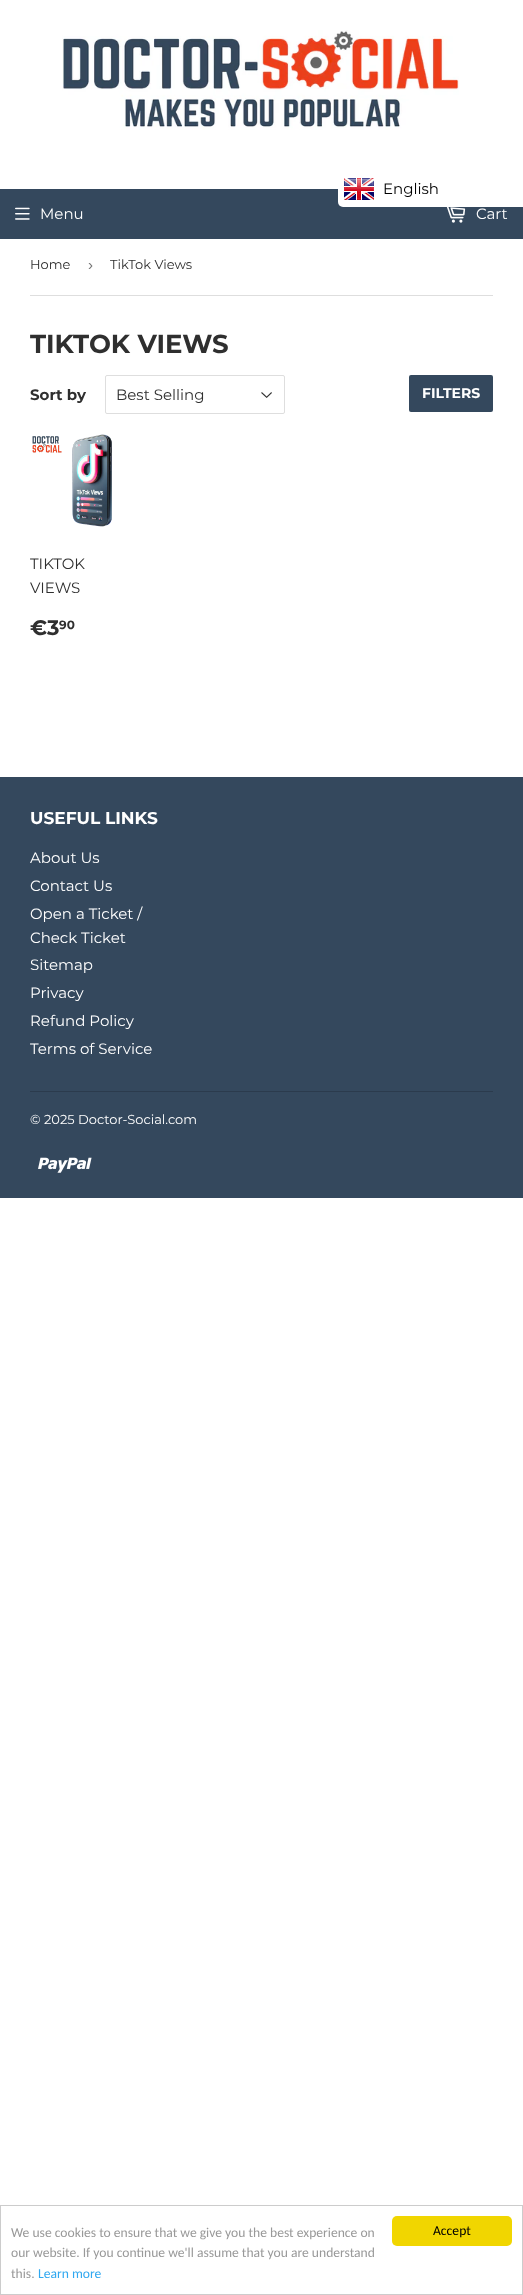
async function draw(canvas) {
  canvas.width = 523;
  canvas.height = 2295;
  const ctx = canvas.getContext('2d');
  ctx.miterLimit = 4;
  ctx.fontKerning = 'normal';
  function label(s, x, y, font, color) {
    ctx.font = font;
    ctx.fillStyle = color;
    ctx.fillText(s, x, y);
  }
  function rect(x, y, w, h, color) {
    ctx.fillStyle = color;
    ctx.fillRect(x, y, w, h);
  }
  function roundedRect(x, y, w, h, r, color) {
    ctx.fillStyle = color;
    ctx.beginPath();
    ctx.roundRect(x, y, w, h, r);
    ctx.fill();
  }
  async function image(src, x, y, w, h) {
    const img = new Image();
    img.src = src;
    await img.decode();
    ctx.drawImage(img, x, y, w, h);
  }

  rect(0, 0, 523, 2295, '#fff');
  rect(0, 189, 523, 50, '#34485d');
  roundedRect(338, 169, 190, 38, 5, '#fff');
  await image('assets/img1.png', 344, 178, 30, 22);
  label('English', 383, 194, '15px Montserrat', '#000');
  await image('assets/img2.png', 62, 30, 397, 100);
  await image('assets/img3.png', 15, 207, 15, 13);
  label('Menu', 40, 219, '15px Montserrat', '#fff');
  await image('assets/img4.png', 446, 207, 20, 16);
  label('Cart', 476, 219, '15px Montserrat', '#fff');
  rect(30, 295, 463, 1, '#dedede');
  label('Home', 30, 269, '13px Montserrat', '#2f2f2f');
  label('›', 88, 270, '15px Liberation Sans', '#767676');
  label('TikTok Views', 110, 269, '13px Montserrat', '#2f2f2f');
  label('TIKTOK VIEWS', 30, 353, 'bold 26px Montserrat', '#2f2f2f');
  label('Sort by', 30, 400, 'bold 15px Montserrat', '#2f2f2f');
  await image('assets/img5.png', 261, 392, 11, 6);
  ctx.beginPath();
  ctx.roundRect(105.5, 375.5, 179, 38, 1.5);
  ctx.strokeStyle = '#dedede';
  ctx.stroke();
  label('Best Selling', 116, 400, '15px Montserrat', '#2f2f2f');
  roundedRect(409, 375, 84, 37, 2, '#34485d');
  label('FILTERS', 422, 398, 'bold 14px Montserrat', '#fff');
  await image('assets/img6.png', 32, 434, 80, 93);
  label('TIKTOK', 30, 569, '15px Montserrat', '#2f2f2f');
  label('VIEWS', 30, 593, '15px Montserrat', '#2f2f2f');
  label('€3', 30, 635, 'bold 21px Montserrat', '#2f2f2f');
  label('90', 59, 629, 'bold 12px Montserrat', '#2f2f2f');
  rect(0, 777, 523, 421, '#34485d');
  label('USEFUL LINKS', 30, 824, 'bold 17px Montserrat', '#fff');
  label('About Us', 30, 863, '15px Montserrat', '#fff');
  label('Contact Us', 30, 891, '15px Montserrat', '#fff');
  label('Open a Ticket /', 30, 919, '15px Montserrat', '#fff');
  label('Check Ticket', 30, 943, '15px Montserrat', '#fff');
  label('Sitemap', 30, 970, '15px Montserrat', '#fff');
  label('Privacy', 30, 998, '15px Montserrat', '#fff');
  label('Refund Policy', 30, 1026, '15px Montserrat', '#fff');
  label('Terms of Service', 30, 1054, '15px Montserrat', '#fff');
  rect(30, 1091, 463, 1, '#2b3b4d');
  label('© 2025 Doctor-Social.com', 30, 1124, '13px Montserrat', '#fff');
  await image('assets/img7.png', 38, 1157, 54, 16);
  ctx.strokeStyle = '#ccc';
  ctx.strokeRect(0.5, 2205.5, 522, 89);
  label('We use cookies to ensure that we give you the best experience on', 11, 2237, '13.6px Carlito', '#999');
  label('our website. If you continue we\'ll assume that you are understand', 11, 2257, '13.6px Carlito', '#999');
  label('this.', 11, 2278, '13.6px Carlito', '#999');
  label('Learn more', 38, 2278, '13.6px Carlito', '#31a8f0');
  roundedRect(392, 2216, 120, 30, 5, '#f1d600');
  label('Accept', 433, 2235, '13.6px Carlito', '#000');
}

draw(document.querySelector('canvas'));
